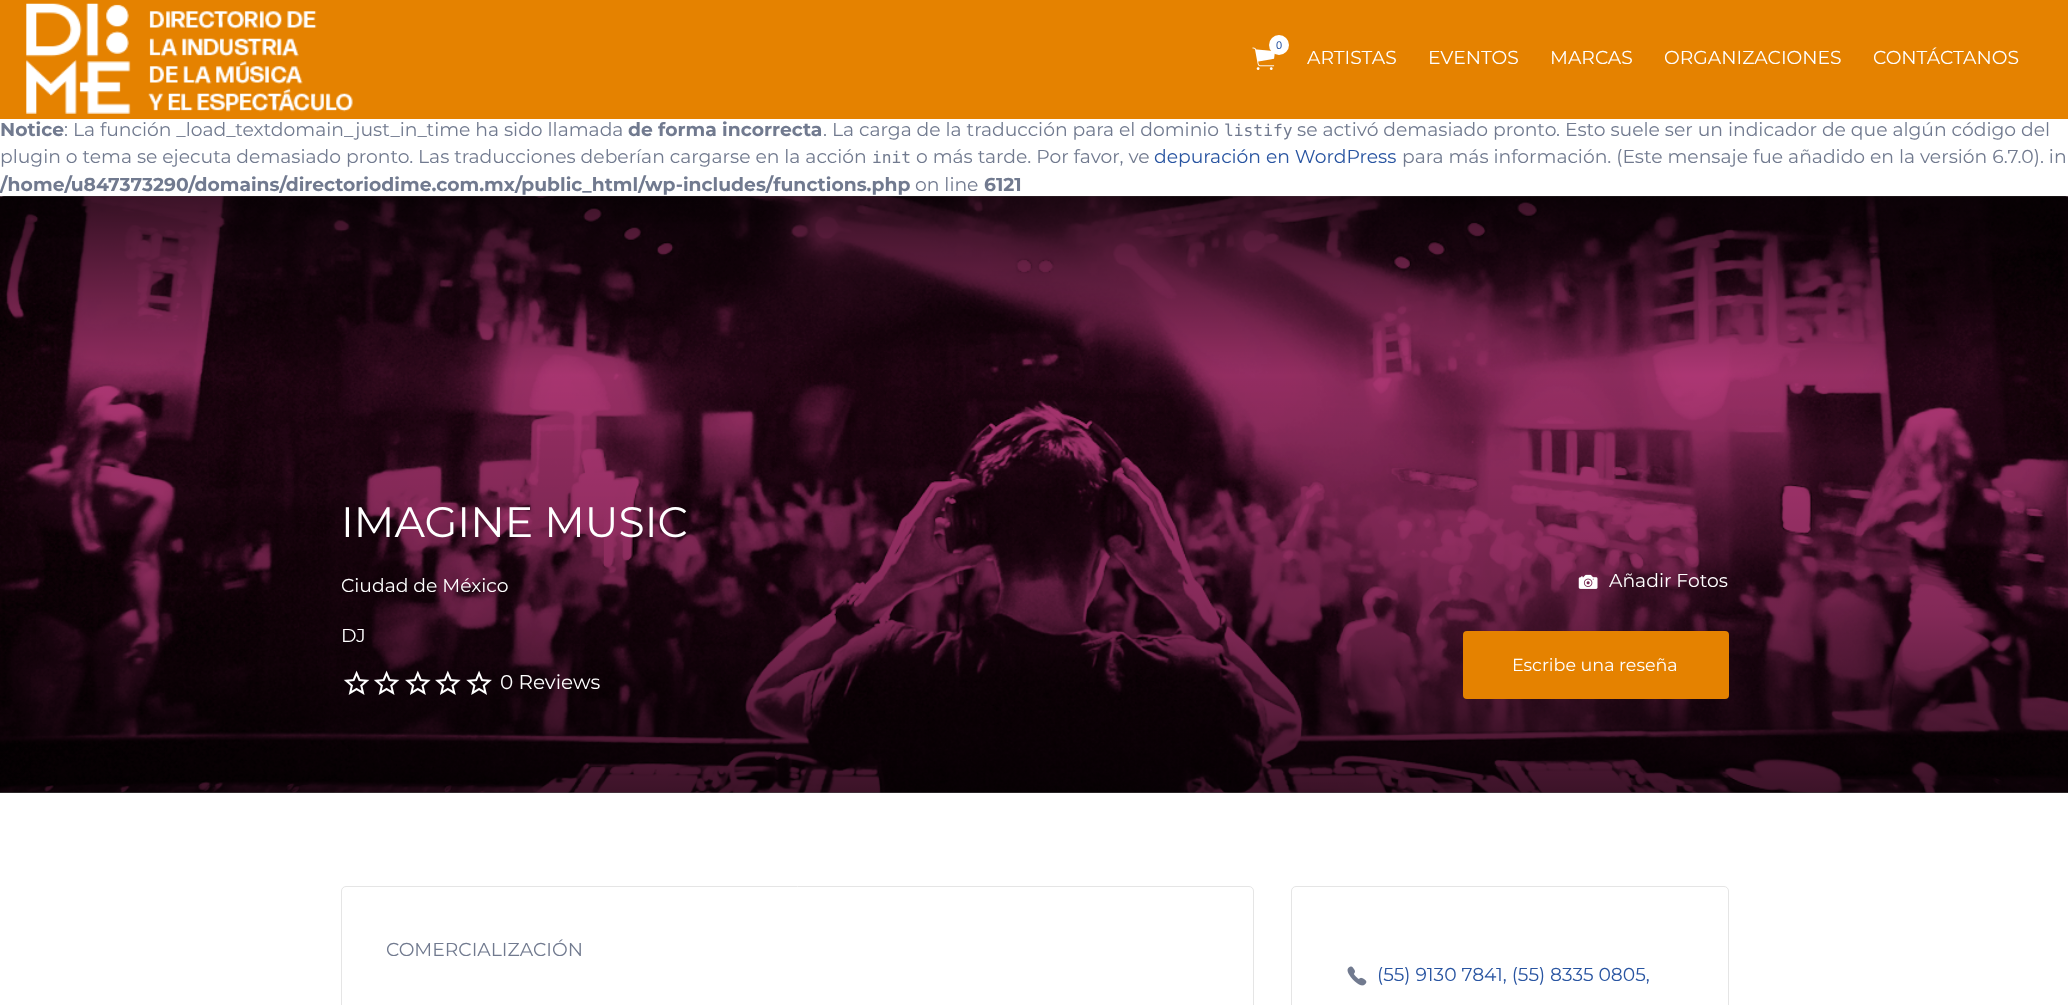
async function draw(canvas) {
  canvas.width = 2068;
  canvas.height = 1005;
  const ctx = canvas.getContext('2d');
  ctx.miterLimit = 4;
  ctx.fontKerning = 'normal';
  function label(s, x, y, font, color) {
    ctx.font = font;
    ctx.fillStyle = color;
    ctx.fillText(s, x, y);
  }
  function rect(x, y, w, h, color) {
    ctx.fillStyle = color;
    ctx.fillRect(x, y, w, h);
  }
  function roundedRect(x, y, w, h, r, color) {
    ctx.fillStyle = color;
    ctx.beginPath();
    ctx.roundRect(x, y, w, h, r);
    ctx.fill();
  }
  async function image(src, x, y, w, h) {
    const img = new Image();
    img.src = src;
    await img.decode();
    ctx.drawImage(img, x, y, w, h);
  }
  let gradient, path;

  rect(0, 0, 2068, 1005, '#fff');
  label('Notice', 0, 136, 'bold 18.75px Montserrat', '#717a8f');
  rect(0, 0, 2068, 119, '#e58200');
  await image('assets/img1.png', 26, 3, 327, 111);
  await image('assets/img2.png', 1252, 47, 23, 23);
  ctx.fillStyle = '#fff';
  ctx.beginPath();
  ctx.arc(1279, 45, 10, 0, 2 * Math.PI);
  ctx.fill();
  label('0', 1276, 49, '11px Liberation Sans', '#2854a1');
  label('ARTISTAS', 1307, 64, '18.75px Montserrat', '#fff');
  label('EVENTOS', 1428, 64, '18.75px Montserrat', '#fff');
  label('MARCAS', 1550, 64, '18.75px Montserrat', '#fff');
  label('ORGANIZACIONES', 1664, 64, '18.75px Montserrat', '#fff');
  label('CONTÁCTANOS', 1873, 64, '18.75px Montserrat', '#fff');
  rect(0, 196, 2068, 597, '#f5f5f5');
  await image('assets/img3.png', 0, 196, 2068, 597);
  gradient = ctx.createLinearGradient(1034, 196, 1034, 793);
  gradient.addColorStop(0, '#000000b3');
  gradient.addColorStop(0.3, '#00000024');
  gradient.addColorStop(0.7, '#00000059');
  gradient.addColorStop(1, '#000000b3');
  ctx.fillStyle = gradient;
  path = new Path2D('M5 196H2064C2067 196 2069 198 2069 201V793H0V201C0 198 2 196 5 196Z');
  ctx.fill(path);
  label('IMAGINE MUSIC', 341, 537, '42.5px Montserrat', '#fff');
  label('Ciudad de México', 341, 592, '18.75px Montserrat', '#fff');
  label('DJ', 341, 642, '18.75px Montserrat', '#fff');
  await image('assets/img4.png', 343, 670, 27, 25);
  await image('assets/img5.png', 373, 670, 27, 25);
  await image('assets/img6.png', 405, 670, 26, 25);
  await image('assets/img7.png', 435, 670, 26, 25);
  await image('assets/img8.png', 466, 670, 26, 25);
  label('0 Reviews', 500, 689, '20px Montserrat', '#fff');
  await image('assets/img9.png', 1578, 574, 20, 15);
  label('Añadir Fotos', 1609, 587, '18.75px Montserrat', '#fff');
  roundedRect(1463, 631, 266, 68, 4, '#e58200');
  label('Escribe una reseña', 1512, 671, '17.5px Montserrat', '#fff');
  ctx.beginPath();
  ctx.roundRect(341.5, 886.5, 912, 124, 4.5);
  ctx.strokeStyle = '#e5e5e5';
  ctx.stroke();
  label('COMERCIALIZACIÓN', 386, 956, '18.75px Montserrat', '#717a8f');
  ctx.beginPath();
  ctx.roundRect(1291.5, 886.5, 437, 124, 4.5);
  ctx.stroke();
  await image('assets/img10.png', 1347, 966, 20, 20);
  label('(55) 9130 7841, (55) 8335 0805,', 1377, 981, '18.75px Montserrat', '#2854a1');
  label(': La función _load_textdomain_just_in_time ha sido llamada', 64, 136, '18.75px Montserrat', '#717a8f');
  label('de forma incorrecta', 628, 136, 'bold 18.75px Montserrat', '#717a8f');
  label('. La carga de la traducción para el dominio', 823, 136, '18.75px Montserrat', '#717a8f');
  label('listify', 1224, 136, '16.25px DejaVu Sans Mono', '#717a8f');
  label('se activó demasiado pronto. Esto suele ser un indicador de que algún código del', 1297, 136, '18.75px Montserrat', '#717a8f');
  label('plugin o tema se ejecuta demasiado pronto. Las traducciones deberían cargarse en la acción', 0, 163, '18.75px Montserrat', '#717a8f');
  label('init', 872, 163, '16.25px DejaVu Sans Mono', '#717a8f');
  label('o más tarde. Por favor, ve', 916, 163, '18.75px Montserrat', '#717a8f');
  label('depuración en WordPress', 1154, 163, '18.75px Montserrat', '#2854a1');
  label('para más información. (Este mensaje fue añadido en la versión 6.7.0). in', 1402, 163, '18.75px Montserrat', '#717a8f');
  label('/home/u847373290/domains/directoriodime.com.mx/public_html/wp-includes/functions.php', 0, 191, 'bold 18.75px Montserrat', '#717a8f');
  label('on line', 915, 191, '18.75px Montserrat', '#717a8f');
  label('6121', 984, 191, 'bold 18.75px Montserrat', '#717a8f');
}

draw(document.querySelector('canvas'));
